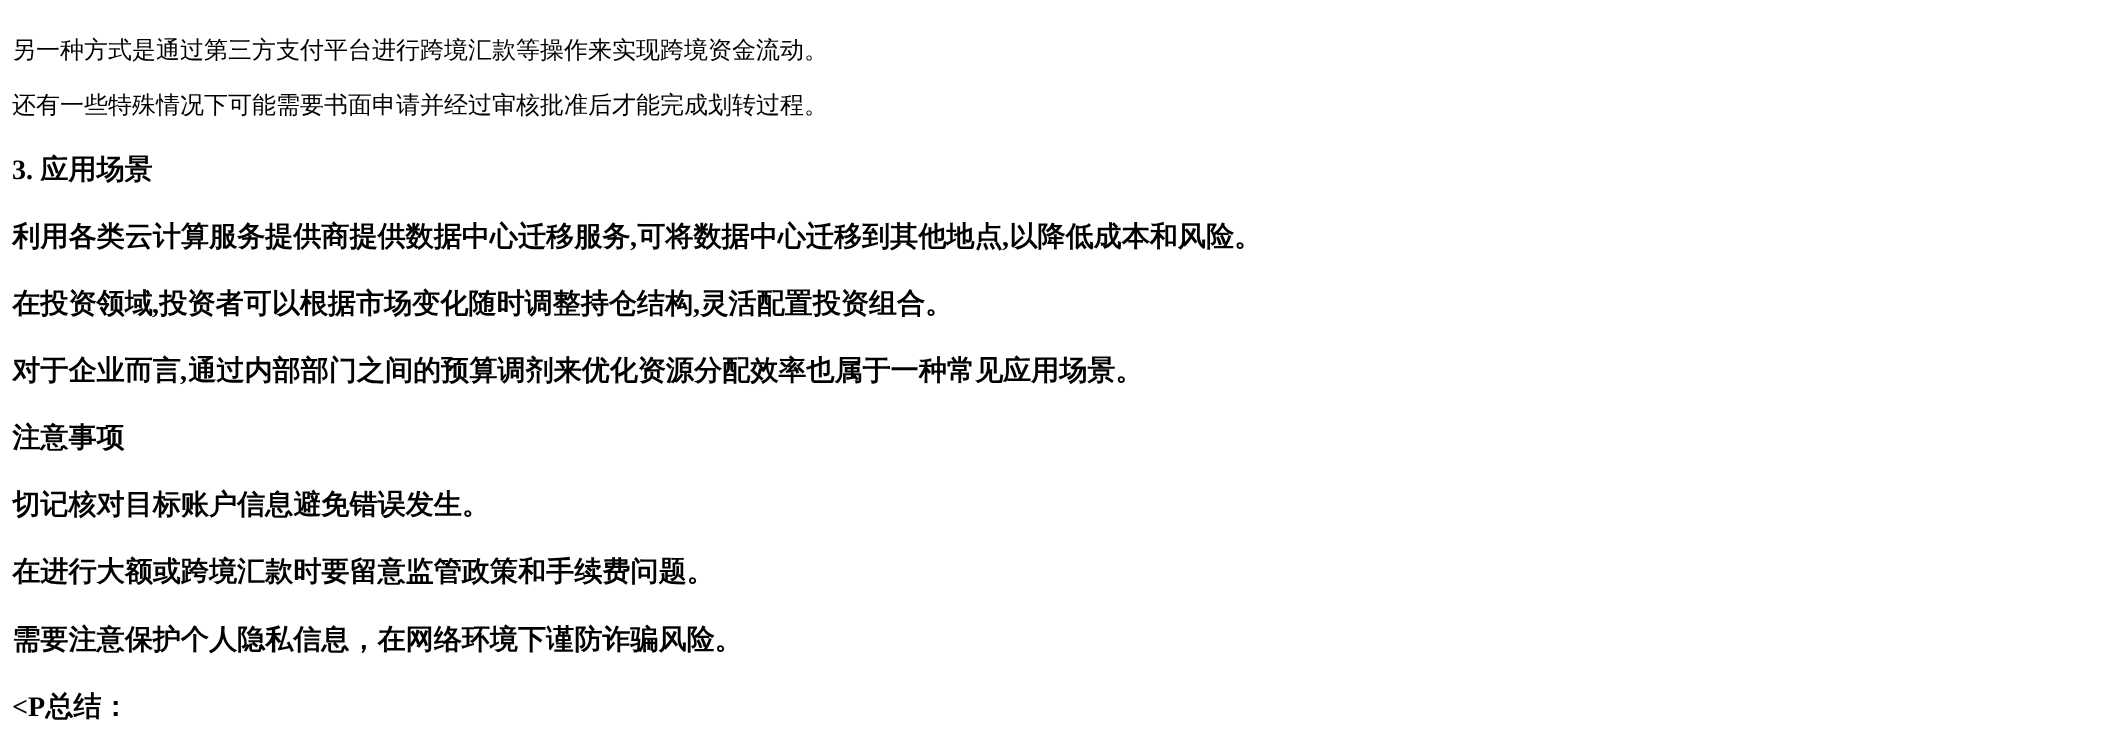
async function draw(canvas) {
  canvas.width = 2107;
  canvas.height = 745;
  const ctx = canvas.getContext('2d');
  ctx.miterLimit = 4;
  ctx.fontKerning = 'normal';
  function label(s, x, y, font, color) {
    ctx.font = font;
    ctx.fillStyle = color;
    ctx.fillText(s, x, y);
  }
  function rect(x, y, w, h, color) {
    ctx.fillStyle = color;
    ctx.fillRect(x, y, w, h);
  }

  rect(0, 0, 2107, 745, '#fff');
  label('另一种方式是通过第三方支付平台进行跨境汇款等操作来实现跨境资金流动。', 12, 58, '500 24px WenQuanYi Zen Hei', '#000');
  label('还有一些特殊情况下可能需要书面申请并经过审核批准后才能完成划转过程。', 12, 113, '500 24px WenQuanYi Zen Hei', '#000');
  label('3.', 12, 179, 'bold 28.1px Liberation Serif', '#000');
  label('应用场景', 40, 179, 'bold 28.1px WenQuanYi Zen Hei', '#000');
  label('利用各类云计算服务提供商提供数据中心迁移服务', 12, 246, 'bold 28.1px WenQuanYi Zen Hei', '#000');
  label(',', 630, 246, 'bold 28.1px Liberation Serif', '#000');
  label('可将数据中心迁移到其他地点', 637, 246, 'bold 28.1px WenQuanYi Zen Hei', '#000');
  label(',', 1002, 246, 'bold 28.1px Liberation Serif', '#000');
  label('以降低成本和风险。', 1009, 246, 'bold 28.1px WenQuanYi Zen Hei', '#000');
  label('在投资领域', 12, 313, 'bold 28.1px WenQuanYi Zen Hei', '#000');
  label(',', 152, 313, 'bold 28.1px Liberation Serif', '#000');
  label('投资者可以根据市场变化随时调整持仓结构', 159, 313, 'bold 28.1px WenQuanYi Zen Hei', '#000');
  label(',', 693, 313, 'bold 28.1px Liberation Serif', '#000');
  label('灵活配置投资组合。', 700, 313, 'bold 28.1px WenQuanYi Zen Hei', '#000');
  label('对于企业而言', 12, 380, 'bold 28.1px WenQuanYi Zen Hei', '#000');
  label(',', 180, 380, 'bold 28.1px Liberation Serif', '#000');
  label('通过内部部门之间的预算调剂来优化资源分配效率也属于一种常见应用场景。', 188, 380, 'bold 28.1px WenQuanYi Zen Hei', '#000');
  label('注意事项', 12, 447, 'bold 28.1px WenQuanYi Zen Hei', '#000');
  label('切记核对目标账户信息避免错误发生。', 12, 514, 'bold 28.1px WenQuanYi Zen Hei', '#000');
  label('在进行大额或跨境汇款时要留意监管政策和手续费问题。', 12, 581, 'bold 28.1px WenQuanYi Zen Hei', '#000');
  label('需要注意保护个人隐私信息，在网络环境下谨防诈骗风险。', 12, 649, 'bold 28.1px WenQuanYi Zen Hei', '#000');
  label('<P', 12, 716, 'bold 28.1px Liberation Serif', '#000');
  label('总结：', 45, 716, 'bold 28.1px WenQuanYi Zen Hei', '#000');
}

draw(document.querySelector('canvas'));
